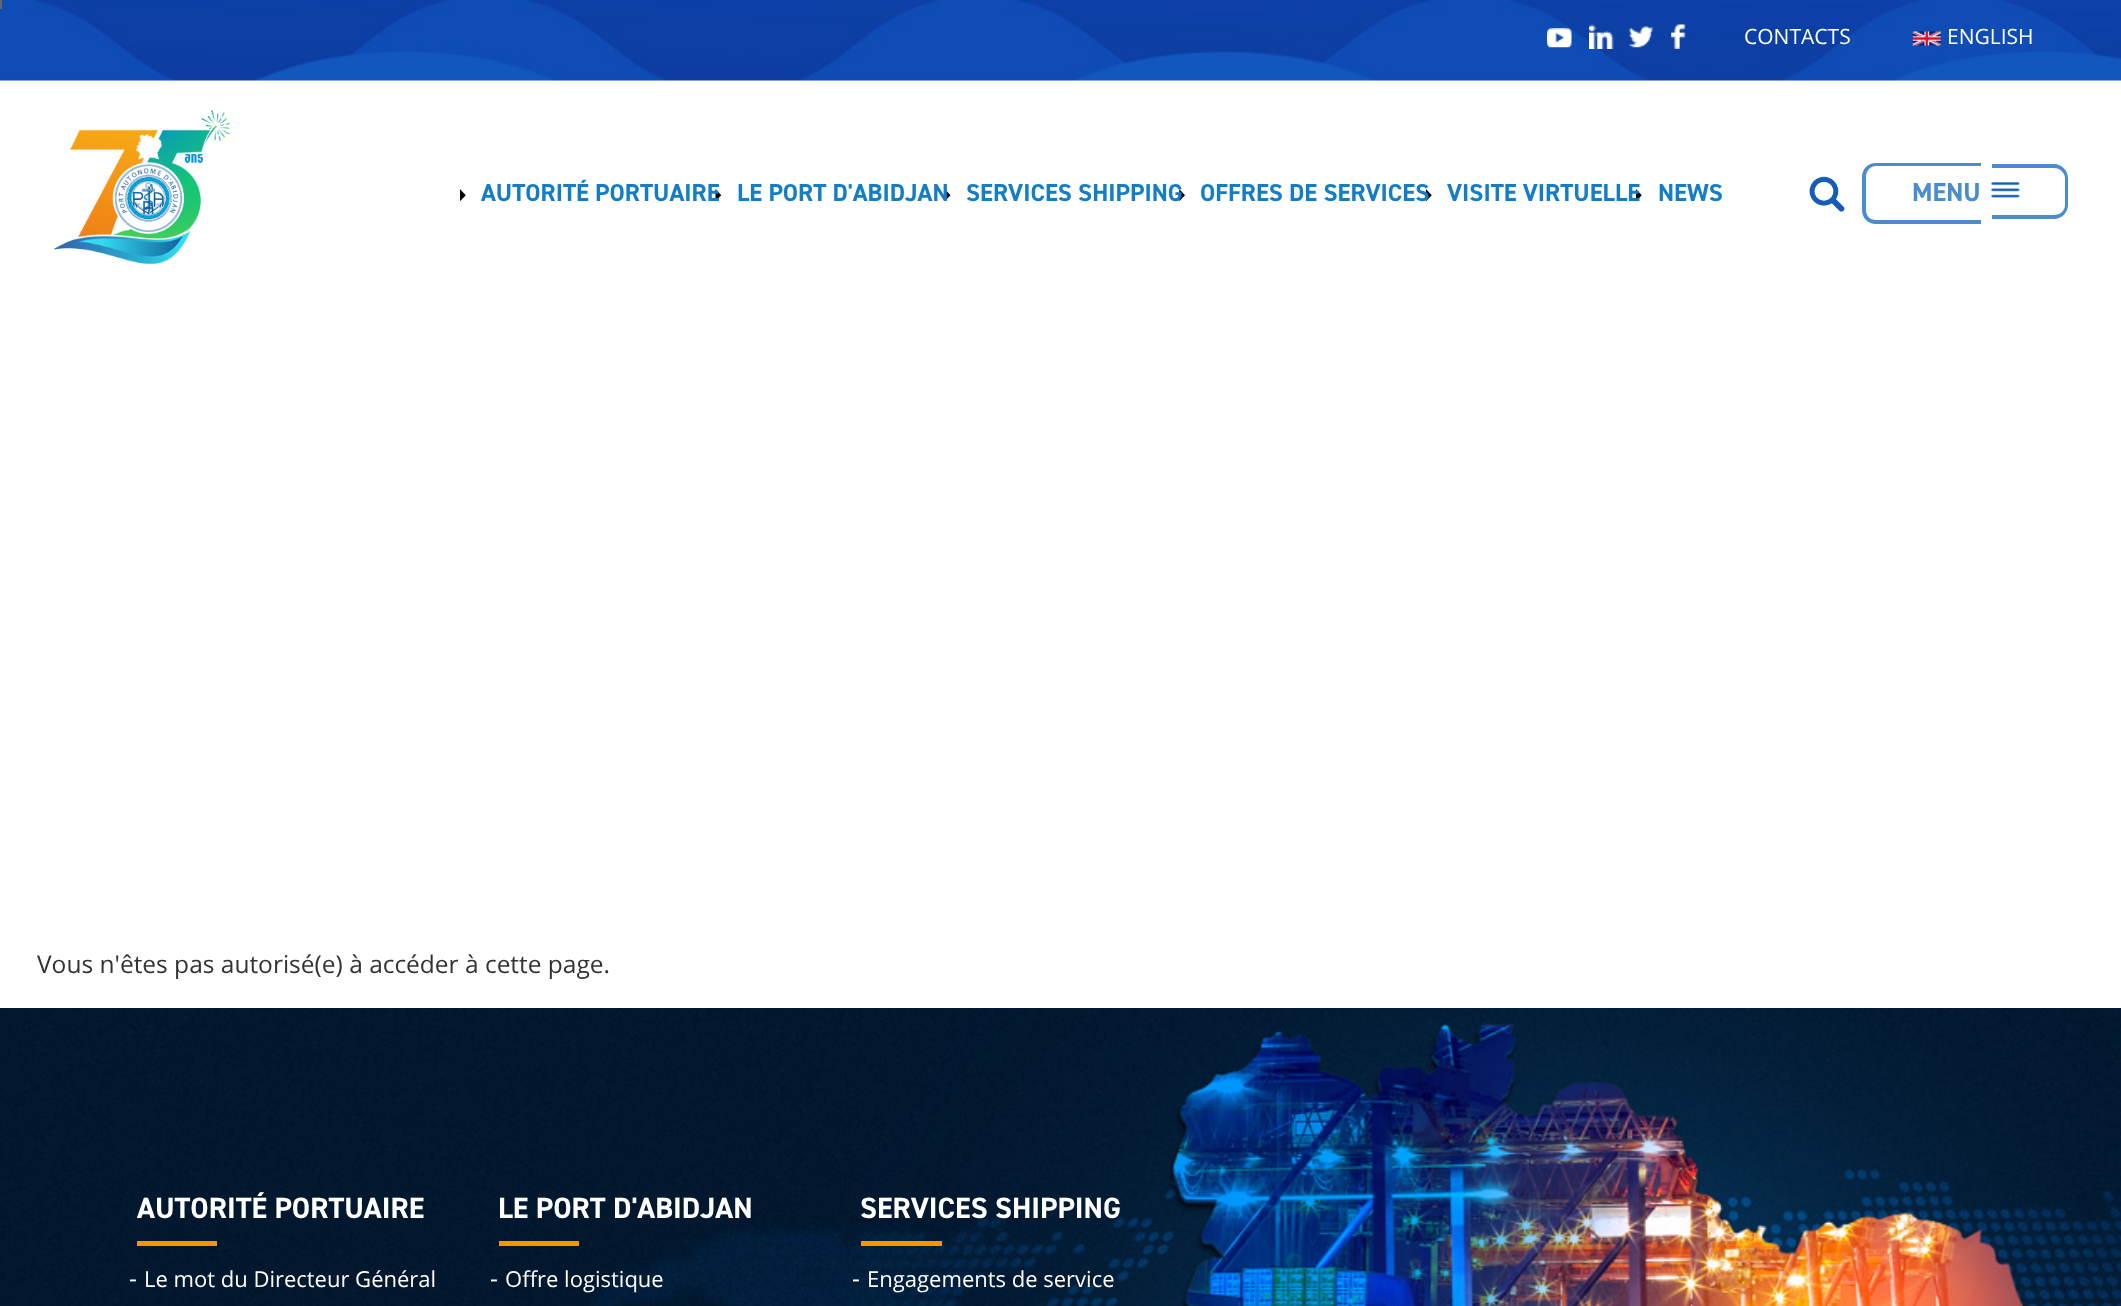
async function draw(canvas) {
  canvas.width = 2121;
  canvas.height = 1306;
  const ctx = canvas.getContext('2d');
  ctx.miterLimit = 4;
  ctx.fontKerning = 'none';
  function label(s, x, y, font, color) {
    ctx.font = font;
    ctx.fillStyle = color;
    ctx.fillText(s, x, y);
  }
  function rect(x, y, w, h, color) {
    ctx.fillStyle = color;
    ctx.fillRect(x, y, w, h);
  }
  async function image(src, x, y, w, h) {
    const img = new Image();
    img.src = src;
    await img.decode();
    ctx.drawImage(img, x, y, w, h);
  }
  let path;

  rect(0, 0, 2121, 1306, '#fff');
  await image('assets/img1.png', 0, 0, 2121, 81);
  rect(0, 0, 2, 9, '#666');
  await image('assets/img2.png', 1547, 28, 25, 20);
  await image('assets/img3.png', 1589, 24, 25, 25);
  await image('assets/img4.png', 1629, 26, 25, 22);
  await image('assets/img5.png', 1671, 24, 15, 25);
  label('CONTACTS', 1744, 44, '21px Open Sans', '#fff');
  await image('assets/img6.png', 1912, 31, 29, 15);
  label('ENGLISH', 1947, 44, '21px Open Sans', '#fff');
  await image('assets/img7.png', 54, 110, 176, 155);
  await image('assets/img8.png', 459, 189, 7, 12);
  await image('assets/img9.png', 715, 189, 7, 12);
  label('AUTORITÉ PORTUAIRE', 481, 201, 'bold 24.5px "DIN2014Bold"', '#147dc7');
  await image('assets/img10.png', 944, 189, 7, 12);
  label('LE PORT D\'ABIDJAN', 737, 201, 'bold 24.5px "DIN2014Bold"', '#147dc7');
  await image('assets/img11.png', 1179, 189, 6, 12);
  label('SERVICES SHIPPING', 966, 201, 'bold 24.5px "DIN2014Bold"', '#147dc7');
  await image('assets/img8.png', 1425, 189, 7, 12);
  label('OFFRES DE SERVICES', 1200, 201, 'bold 24.5px "DIN2014Bold"', '#147dc7');
  await image('assets/img8.png', 1635, 189, 7, 12);
  label('VISITE VIRTUELLE', 1447, 201, 'bold 24.5px "DIN2014Bold"', '#147dc7');
  label('NEWS', 1658, 201, 'bold 24.5px "DIN2014Bold"', '#147dc7');
  await image('assets/img12.png', 1809, 176, 36, 36);
  ctx.fillStyle = '#4a8cd0';
  path = new Path2D('M1876 163H1981V224H1876C1868 224 1862 218 1862 210V177C1862 169 1868 163 1876 163ZM1876 166H1981V220H1876C1870 220 1866 216 1866 210V177C1866 171 1870 166 1876 166Z');
  ctx.fill(path, 'evenodd');
  path = new Path2D('M1992 164H2054C2062 164 2068 171 2068 178V205C2068 212 2062 219 2054 219H1992ZM1992 168H2054C2060 168 2065 173 2065 178V205C2065 211 2060 215 2054 215H1992Z');
  ctx.fill(path, 'evenodd');
  label('MENU', 1912, 201, 'bold 26px "DIN2014Bold"', '#4a8cd0');
  await image('assets/img13.png', 1991, 182, 29, 16);
  label('Vous n\'êtes pas autorisé(e) à accéder à cette page.', 37, 973, '24.5px Open Sans', '#333');
  await image('assets/img14.png', 0, 1008, 2121, 298);
  label('AUTORITÉ PORTUAIRE', 137, 1218, 'bold 29.5px "DIN2014Bold"', '#fff');
  rect(137, 1241, 80, 5, '#ff9400');
  label('-', 129, 1287, '24.5px Open Sans', '#fff');
  label('Le mot du Directeur Général', 144, 1287, '22px Open Sans', '#fff');
  label('LE PORT D\'ABIDJAN', 498, 1218, 'bold 29.5px "DIN2014Bold"', '#fff');
  rect(499, 1241, 80, 5, '#ff9400');
  label('-', 490, 1287, '24.5px Open Sans', '#fff');
  label('Offre logistique', 505, 1287, '22px Open Sans', '#fff');
  label('SERVICES SHIPPING', 860, 1218, 'bold 29.5px "DIN2014Bold"', '#fff');
  rect(861, 1241, 81, 5, '#ff9400');
  label('-', 852, 1287, '24.5px Open Sans', '#fff');
  label('Engagements de service', 867, 1287, '22px Open Sans', '#fff');
}

draw(document.querySelector('canvas'));
